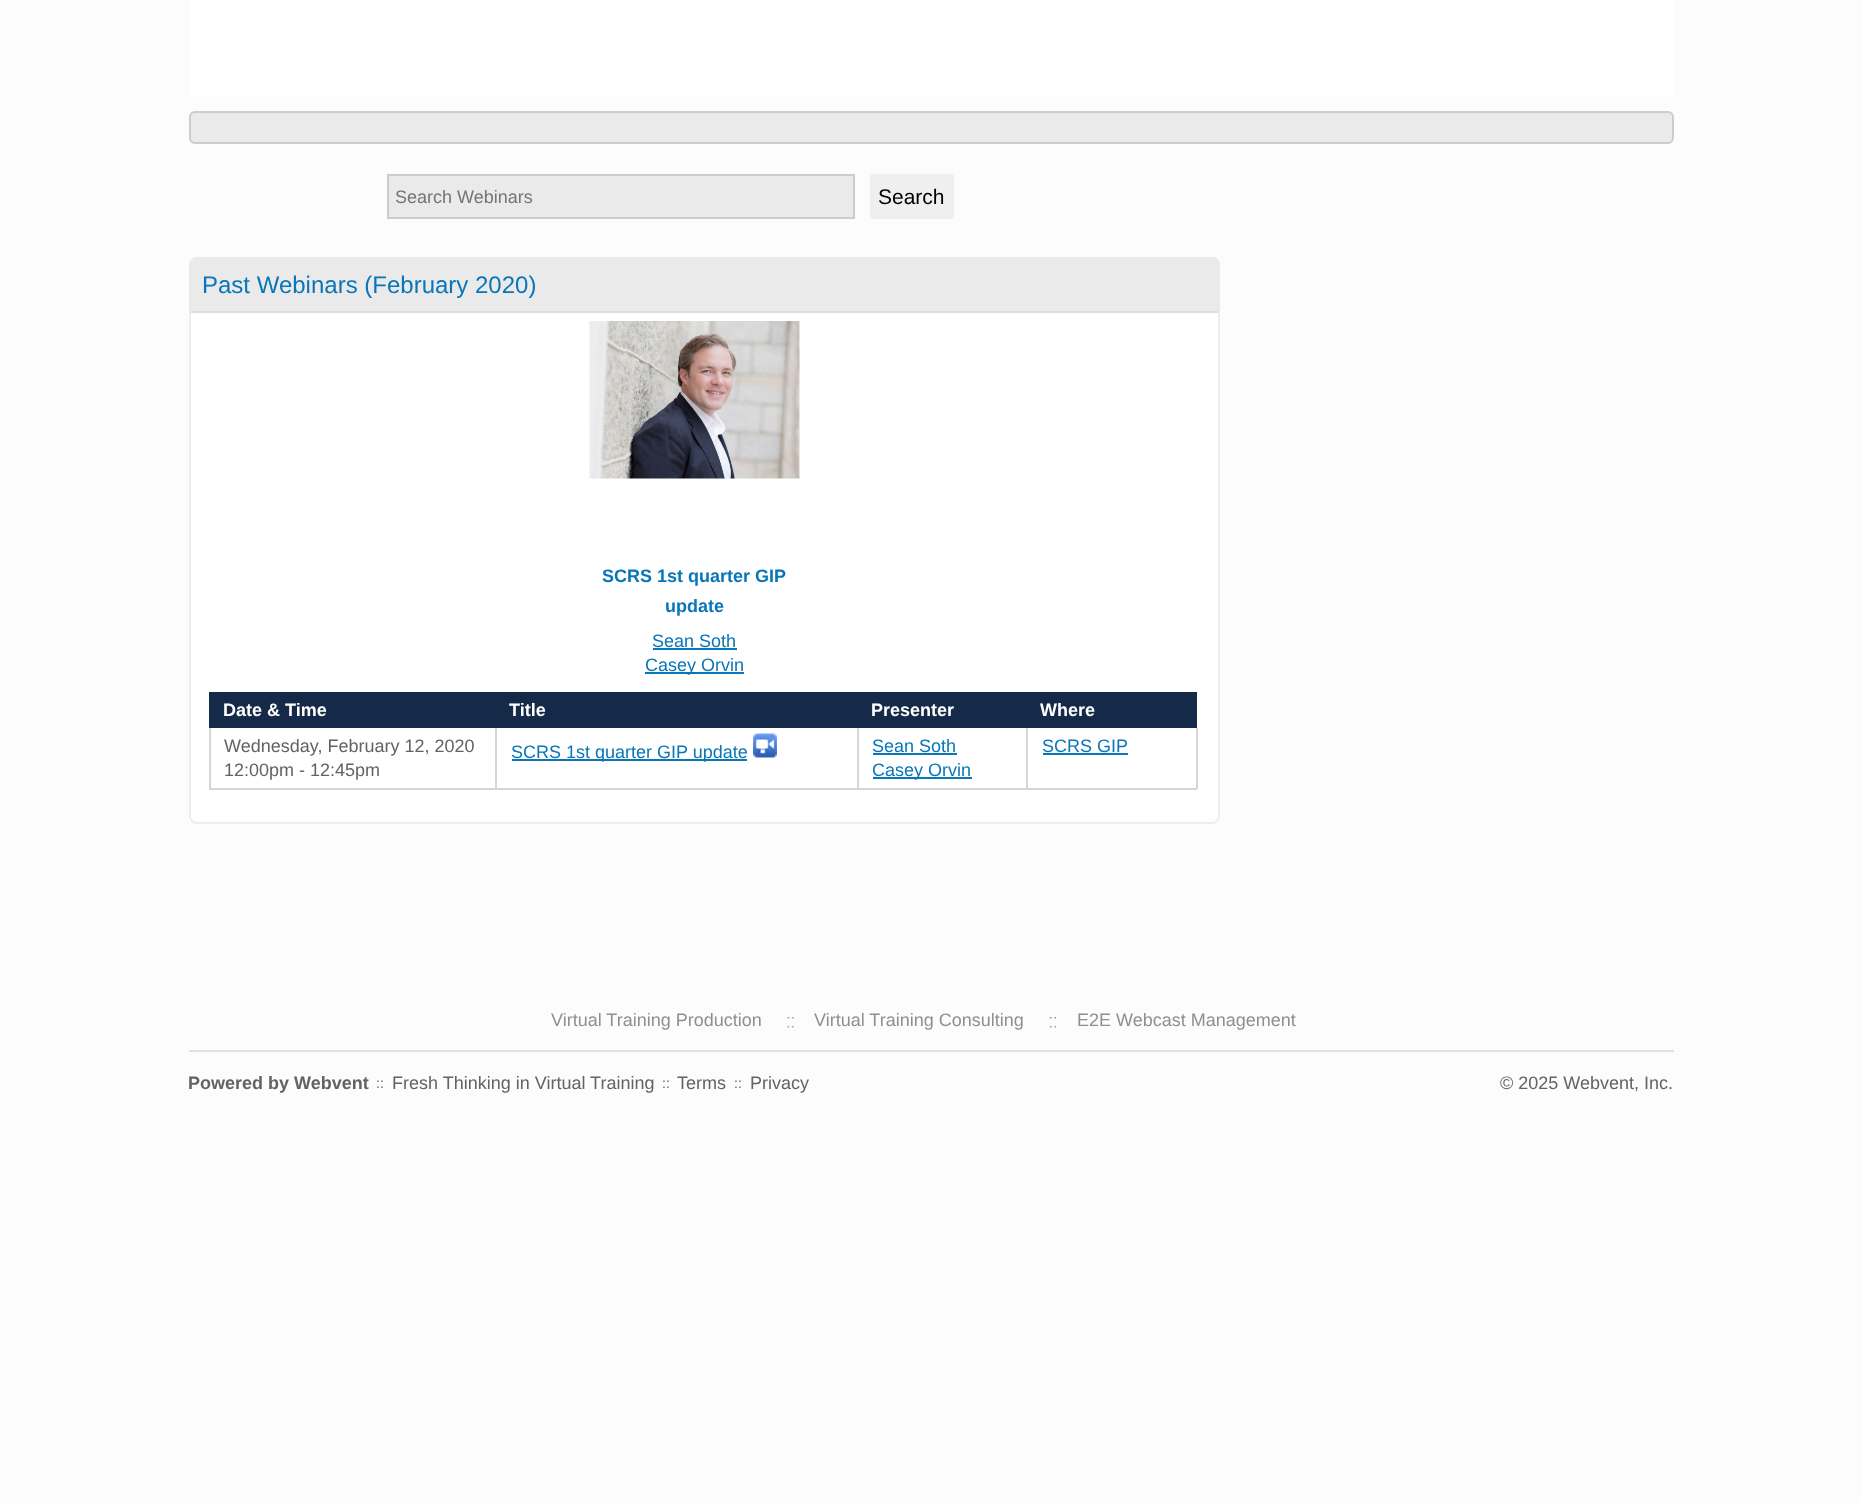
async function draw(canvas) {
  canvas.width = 1861;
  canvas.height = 1503;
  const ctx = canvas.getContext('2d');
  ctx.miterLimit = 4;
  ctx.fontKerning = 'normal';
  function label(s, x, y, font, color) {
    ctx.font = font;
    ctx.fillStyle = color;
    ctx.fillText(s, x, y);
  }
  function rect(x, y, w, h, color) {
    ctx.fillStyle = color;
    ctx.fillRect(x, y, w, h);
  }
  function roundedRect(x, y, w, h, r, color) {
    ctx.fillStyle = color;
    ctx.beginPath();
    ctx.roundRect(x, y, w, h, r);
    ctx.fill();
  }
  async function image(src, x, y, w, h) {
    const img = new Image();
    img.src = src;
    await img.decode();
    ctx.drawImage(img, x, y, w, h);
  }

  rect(0, 0, 1861, 1503, '#fcfcfc');
  rect(189, 0, 1485, 96, '#fff');
  ctx.fillStyle = '#eaeaea';
  ctx.beginPath();
  ctx.roundRect(190, 112, 1483, 31, 5);
  ctx.fill();
  ctx.strokeStyle = '#ccc';
  ctx.lineWidth = 2;
  ctx.stroke();
  ctx.beginPath();
  ctx.rect(388, 175, 466, 43);
  ctx.fill();
  ctx.stroke();
  label('Search Webinars', 395, 203, '18px Liberation Sans', '#757575');
  roundedRect(870, 174, 84, 45, 3, '#efefef');
  label('Search', 878, 204, '21px Liberation Sans', '#000');
  ctx.fillStyle = '#fff';
  ctx.beginPath();
  ctx.roundRect(190, 258, 1029, 565, 7);
  ctx.fill();
  ctx.strokeStyle = '#ededed';
  ctx.stroke();
  ctx.fillStyle = '#eaeaea';
  ctx.beginPath();
  ctx.roundRect(189, 257, 1031, 54, [8, 8, 0, 0]);
  ctx.fill();
  label('Past Webinars (February 2020)', 202, 293, '24px Liberation Sans', '#0976b8');
  rect(191, 311, 1027, 2, '#ddd');
  await image('assets/img1.png', 589, 321, 211, 158);
  label('SCRS 1st quarter GIP', 602, 582, 'bold 18px Liberation Sans', '#0976b8');
  label('update', 665, 612, 'bold 18px Liberation Sans', '#0976b8');
  label('Sean Soth', 652, 647, '18px Liberation Sans', '#0976b8');
  rect(653, 648, 84, 2, '#0976b8');
  rect(645, 672, 99, 2, '#0976b8');
  label('Casey Orvin', 645, 671, '18px Liberation Sans', '#0976b8');
  rect(209, 692, 988, 36, '#142a48');
  label('Date & Time', 223, 716, 'bold 18px Liberation Sans', '#fff');
  label('Title', 509, 716, 'bold 18px Liberation Sans', '#fff');
  label('Presenter', 871, 716, 'bold 18px Liberation Sans', '#fff');
  label('Where', 1040, 716, 'bold 18px Liberation Sans', '#fff');
  rect(209, 788, 817, 2, '#d6d6d6');
  rect(209, 728, 2, 61, '#d6d6d6');
  label('Wednesday, February 12, 2020', 224, 752, '18px Liberation Sans', '#636363');
  label('12:00pm - 12:45pm', 224, 776, '18px Liberation Sans', '#636363');
  rect(495, 728, 2, 61, '#d6d6d6');
  rect(512, 759, 235, 2, '#0976b8');
  label('SCRS 1st quarter GIP update', 511, 758, '18px Liberation Sans', '#0976b8');
  await image('assets/img2.png', 753, 733, 24, 25);
  rect(857, 728, 2, 61, '#d6d6d6');
  label('Sean Soth', 872, 752, '18px Liberation Sans', '#0976b8');
  rect(873, 753, 84, 2, '#0976b8');
  rect(873, 777, 99, 2, '#0976b8');
  label('Casey Orvin', 872, 776, '18px Liberation Sans', '#0976b8');
  rect(1196, 728, 2, 61, '#d6d6d6');
  rect(1026, 788, 171, 2, '#d6d6d6');
  rect(1026, 728, 2, 61, '#d6d6d6');
  label('SCRS GIP', 1042, 752, '18px Liberation Sans', '#0976b8');
  rect(1043, 753, 85, 2, '#0976b8');
  label('Virtual Training Production', 551, 1026, '18px Liberation Sans', '#8f8f8f');
  await image('assets/img3.png', 787, 1017, 7, 11);
  label('Virtual Training Consulting', 814, 1026, '18px Liberation Sans', '#8f8f8f');
  await image('assets/img4.png', 1050, 1017, 6, 11);
  label('E2E Webcast Management', 1077, 1026, '18px Liberation Sans', '#8f8f8f');
  rect(189, 1050, 1485, 2, '#e1e1e1');
  label('Powered by Webvent', 188, 1089, 'bold 18px Liberation Sans', '#636363');
  label('::', 376, 1088, '14px Liberation Sans', '#636363');
  label('Fresh Thinking in Virtual Training', 392, 1089, '18px Liberation Sans', '#636363');
  label('::', 662, 1088, '14px Liberation Sans', '#636363');
  label('Terms', 677, 1089, '18px Liberation Sans', '#636363');
  label('::', 734, 1088, '14px Liberation Sans', '#636363');
  label('Privacy', 750, 1089, '18px Liberation Sans', '#636363');
  label('© 2025 Webvent, Inc.', 1500, 1089, '18px Liberation Sans', '#636363');
}

draw(document.querySelector('canvas'));
